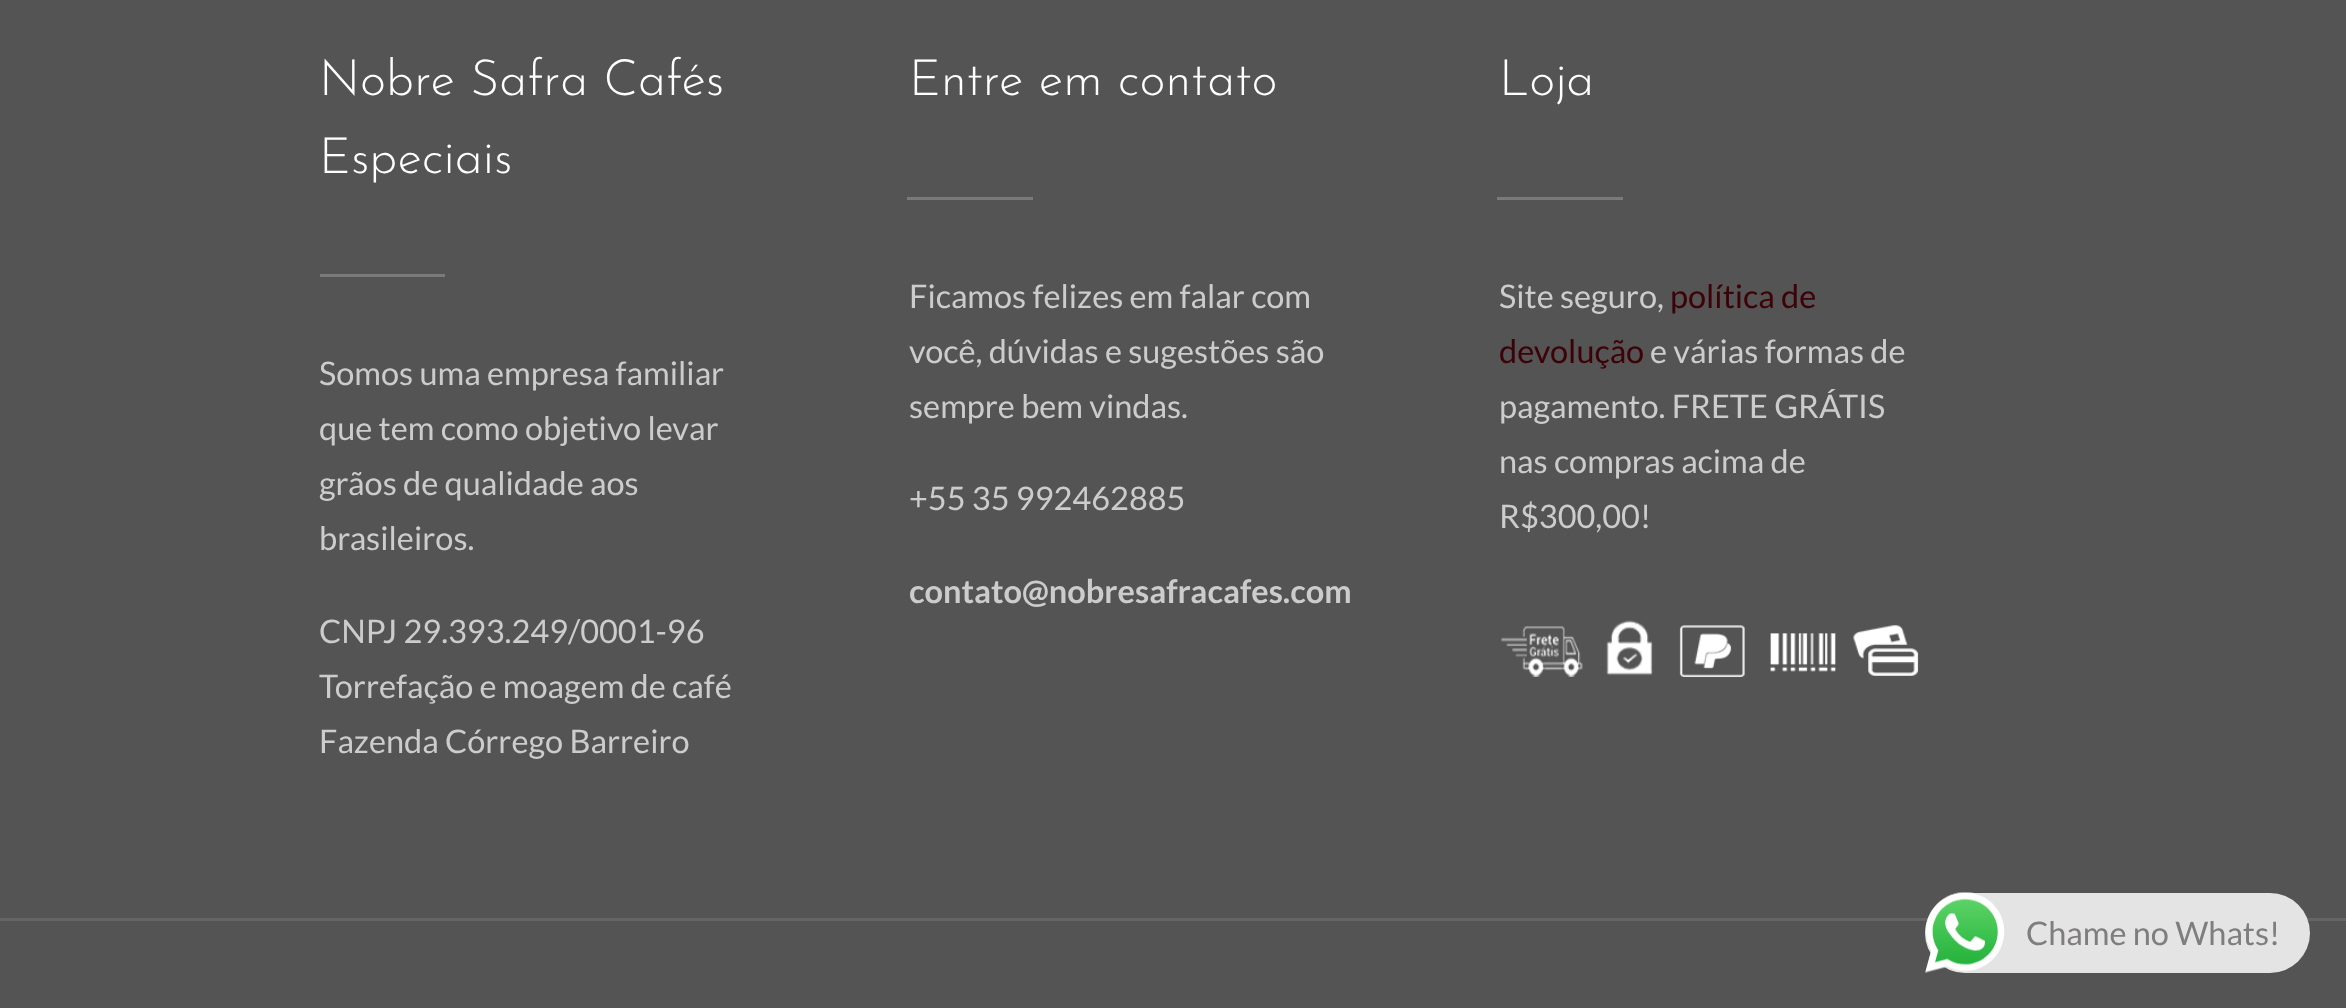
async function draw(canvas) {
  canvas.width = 2346;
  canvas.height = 1008;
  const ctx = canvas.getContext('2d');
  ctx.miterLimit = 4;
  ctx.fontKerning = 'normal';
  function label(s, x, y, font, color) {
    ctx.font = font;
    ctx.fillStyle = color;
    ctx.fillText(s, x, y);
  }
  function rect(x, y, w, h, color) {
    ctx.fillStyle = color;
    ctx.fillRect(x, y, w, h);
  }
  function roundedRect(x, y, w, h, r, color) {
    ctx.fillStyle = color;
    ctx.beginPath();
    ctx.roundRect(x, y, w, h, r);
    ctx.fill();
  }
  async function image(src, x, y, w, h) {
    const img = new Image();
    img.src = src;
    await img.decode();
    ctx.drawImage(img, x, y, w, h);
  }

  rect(0, 0, 2346, 1008, '#545454');
  label('Nobre Safra Cafés', 319, 95, '300 50px Josefin Sans', '#fff');
  label('Especiais', 319, 173, '300 50px Josefin Sans', '#fff');
  rect(320, 274, 125, 3, '#7a7a7a');
  label('Somos uma empresa familiar', 319, 385, '32.5px Lato', '#ccc');
  label('que tem como objetivo levar', 319, 440, '32.5px Lato', '#ccc');
  label('grãos de qualidade aos', 319, 495, '32.5px Lato', '#ccc');
  label('brasileiros.', 319, 550, '32.5px Lato', '#ccc');
  label('CNPJ 29.393.249/0001-96', 319, 643, '32.5px Lato', '#ccc');
  label('Torrefação e moagem de café', 319, 698, '32.5px Lato', '#ccc');
  label('Fazenda Córrego Barreiro', 319, 753, '32.5px Lato', '#ccc');
  label('Entre em contato', 909, 95, '300 50px Josefin Sans', '#fff');
  rect(907, 197, 126, 3, '#7a7a7a');
  label('Ficamos felizes em falar com', 909, 308, '32.5px Lato', '#ccc');
  label('você, dúvidas e sugestões são', 909, 363, '32.5px Lato', '#ccc');
  label('sempre bem vindas.', 909, 418, '32.5px Lato', '#ccc');
  label('+55 35 992462885', 909, 510, '32.5px Lato', '#ccc');
  label('contato@nobresafracafes.com', 909, 603, 'bold 32.5px Lato', '#ccc');
  label('Loja', 1499, 95, '300 50px Josefin Sans', '#fff');
  rect(1497, 197, 126, 3, '#7a7a7a');
  label('Site seguro,', 1499, 308, '32.5px Lato', '#ccc');
  label('política de', 1670, 308, '32.5px Lato', '#3d0208');
  label('devolução', 1499, 363, '32.5px Lato', '#3d0208');
  label('e várias formas de', 1650, 363, '32.5px Lato', '#ccc');
  label('pagamento. FRETE GRÁTIS', 1499, 418, '32.5px Lato', '#ccc');
  label('nas compras acima de', 1499, 473, '32.5px Lato', '#ccc');
  label('R$300,00!', 1499, 528, '32.5px Lato', '#ccc');
  await image('assets/img1.png', 1500, 620, 419, 57);
  rect(0, 918, 2346, 3, '#656565');
  roundedRect(1925, 893, 385, 80, 40, '#e4e4e4');
  await image('assets/img2.png', 1925, 892, 80, 81);
  label('Chame no Whats!', 2026, 945, '32.5px Lato', '#7f7d7d');
}

draw(document.querySelector('canvas'));
